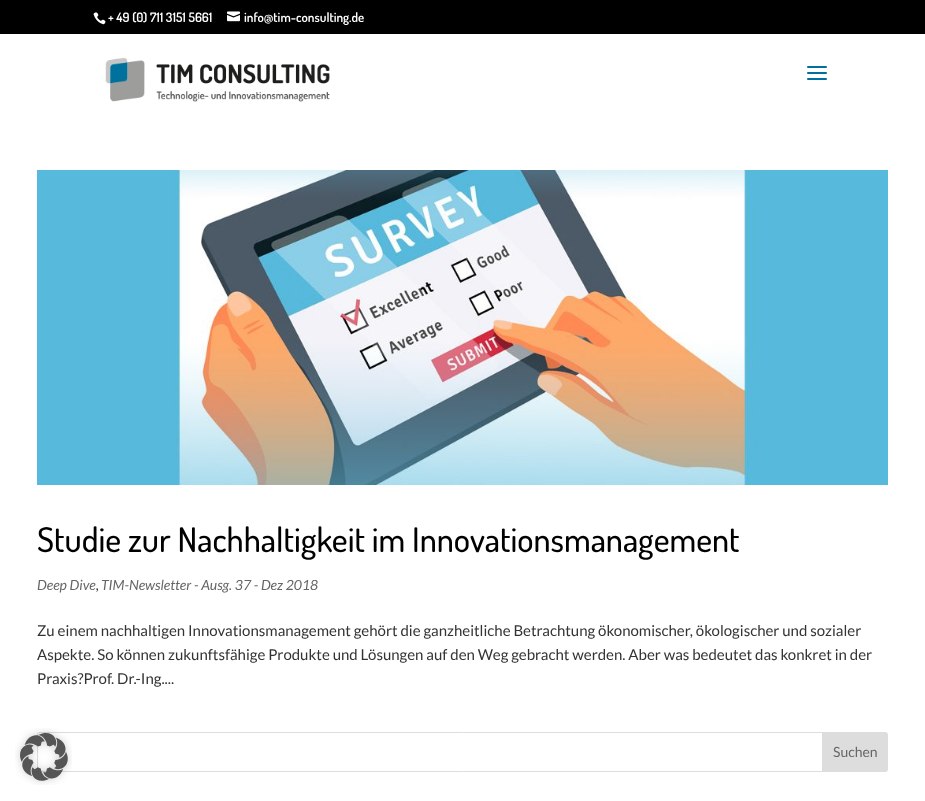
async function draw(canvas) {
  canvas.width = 925;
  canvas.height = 801;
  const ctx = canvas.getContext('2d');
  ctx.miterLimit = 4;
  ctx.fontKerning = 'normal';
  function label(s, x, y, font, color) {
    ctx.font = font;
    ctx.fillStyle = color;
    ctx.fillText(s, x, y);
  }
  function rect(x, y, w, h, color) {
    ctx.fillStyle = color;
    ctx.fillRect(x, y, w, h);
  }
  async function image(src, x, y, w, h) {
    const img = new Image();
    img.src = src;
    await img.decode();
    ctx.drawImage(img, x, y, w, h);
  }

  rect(0, 0, 925, 801, '#fff');
  rect(0, 0, 925, 34, '#000');
  await image('assets/img1.png', 93, 12, 13, 13);
  label('+ 49 (0) 711 3151 5661', 108, 22, '600 13px Dosis', '#fff');
  await image('assets/img2.png', 227, 11, 13, 11);
  label('info@tim-consulting.de', 244, 22, '600 13px Dosis', '#fff');
  await image('assets/img3.png', 105, 57, 225, 45);
  await image('assets/img4.png', 807, 66, 20, 14);
  await image('assets/img5.png', 37, 170, 851, 315);
  label('Studie zur Nachhaltigkeit im Innovationsmanagement', 37, 552, '500 34px Dosis', '#000');
  label('Deep Dive', 37, 590, 'italic 14px Lato', '#666');
  label(',', 96, 590, 'italic 14px Lato', '#333');
  label('TIM-Newsletter - Ausg. 37 - Dez 2018', 101, 590, 'italic 14px Lato', '#666');
  label('Zu einem nachhaltigen Innovationsmanagement gehört die ganzheitliche Betrachtung ökonomischer, ökologischer und sozialer', 37, 636, '15px Lato', '#333');
  label('Aspekte. So können zukunftsfähige Produkte und Lösungen auf den Weg gebracht werden. Aber was bedeutet das konkret in der', 37, 660, '15px Lato', '#333');
  label('Praxis?Prof. Dr.-Ing....', 37, 684, '15px Lato', '#333');
  ctx.beginPath();
  ctx.roundRect(37.5, 732.5, 850, 39, 2.5);
  ctx.strokeStyle = '#ddd';
  ctx.stroke();
  ctx.fillStyle = '#ddd';
  ctx.beginPath();
  ctx.roundRect(822.5, 732.5, 65, 39, [0, 2.5, 2.5, 0]);
  ctx.fill();
  ctx.stroke();
  label('Suchen', 833, 757, '14px Lato', '#666');
  await image('assets/img6.png', 15, 728, 57, 57);
}

draw(document.querySelector('canvas'));
